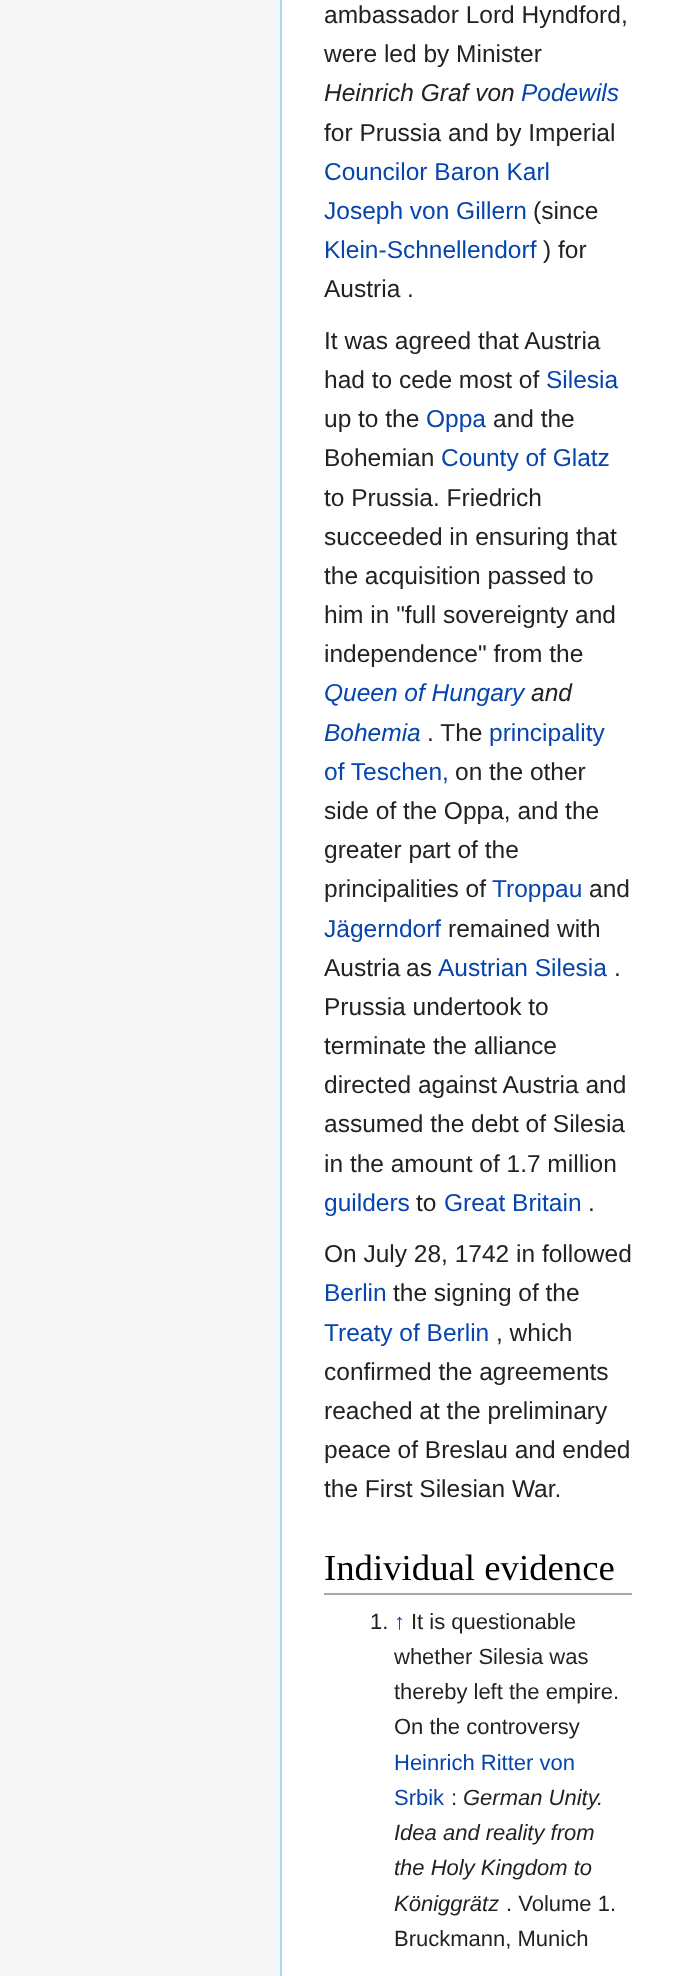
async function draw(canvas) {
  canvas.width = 673;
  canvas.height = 1976;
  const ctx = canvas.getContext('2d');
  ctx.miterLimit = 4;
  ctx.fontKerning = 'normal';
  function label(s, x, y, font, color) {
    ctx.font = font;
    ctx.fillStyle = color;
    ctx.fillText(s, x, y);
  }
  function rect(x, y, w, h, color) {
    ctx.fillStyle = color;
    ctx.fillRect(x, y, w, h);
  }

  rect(0, 0, 673, 1976, '#f6f6f6');
  rect(282, 0, 391, 1976, '#fff');
  rect(280, 0, 2, 1976, '#a7d7f9');
  label('ambassador Lord Hyndford,', 324, 23, '24.5px Liberation Sans', '#222');
  label('were led by Minister', 324, 62, '24.5px Liberation Sans', '#222');
  label('Heinrich Graf von', 324, 101, 'italic 24.5px Liberation Sans', '#222');
  label('Podewils', 521, 101, 'italic 24.5px Liberation Sans', '#0645ad');
  label('for Prussia and by Imperial', 324, 141, '24.5px Liberation Sans', '#222');
  label('Councilor Baron Karl', 324, 180, '24.5px Liberation Sans', '#0645ad');
  label('Joseph von Gillern', 324, 219, '24.5px Liberation Sans', '#0645ad');
  label('(since', 533, 219, '24.5px Liberation Sans', '#222');
  label('Klein-Schnellendorf', 324, 258, '24.5px Liberation Sans', '#0645ad');
  label(') for', 543, 258, '24.5px Liberation Sans', '#222');
  label('Austria .', 324, 297, '24.5px Liberation Sans', '#222');
  label('It was agreed that Austria', 324, 349, '24.5px Liberation Sans', '#222');
  label('had to cede most of', 324, 388, '24.5px Liberation Sans', '#222');
  label('Silesia', 546, 388, '24.5px Liberation Sans', '#0645ad');
  label('up to the', 324, 427, '24.5px Liberation Sans', '#222');
  label('Oppa', 426, 427, '24.5px Liberation Sans', '#0645ad');
  label('and the', 493, 427, '24.5px Liberation Sans', '#222');
  label('Bohemian', 324, 466, '24.5px Liberation Sans', '#222');
  label('County of Glatz', 441, 466, '24.5px Liberation Sans', '#0645ad');
  label('to Prussia. Friedrich', 324, 506, '24.5px Liberation Sans', '#222');
  label('succeeded in ensuring that', 324, 545, '24.5px Liberation Sans', '#222');
  label('the acquisition passed to', 324, 584, '24.5px Liberation Sans', '#222');
  label('him in "full sovereignty and', 324, 623, '24.5px Liberation Sans', '#222');
  label('independence" from the', 324, 662, '24.5px Liberation Sans', '#222');
  label('Queen of Hungary', 324, 701, 'italic 24.5px Liberation Sans', '#0645ad');
  label('and', 531, 701, 'italic 24.5px Liberation Sans', '#222');
  label('Bohemia', 324, 741, 'italic 24.5px Liberation Sans', '#0645ad');
  label('. The', 427, 741, '24.5px Liberation Sans', '#222');
  label('principality', 489, 741, '24.5px Liberation Sans', '#0645ad');
  label('of Teschen,', 324, 780, '24.5px Liberation Sans', '#0645ad');
  label('on the other', 455, 780, '24.5px Liberation Sans', '#222');
  label('side of the Oppa, and the', 324, 819, '24.5px Liberation Sans', '#222');
  label('greater part of the', 324, 858, '24.5px Liberation Sans', '#222');
  label('principalities of', 324, 897, '24.5px Liberation Sans', '#222');
  label('Troppau', 492, 897, '24.5px Liberation Sans', '#0645ad');
  label('and', 589, 897, '24.5px Liberation Sans', '#222');
  label('Jägerndorf', 324, 937, '24.5px Liberation Sans', '#0645ad');
  label('remained with', 448, 937, '24.5px Liberation Sans', '#222');
  ctx.wordSpacing = '-1px';
  label('Austria as', 324, 976, '24.5px Liberation Sans', '#222');
  ctx.wordSpacing = '0px';
  label('Austrian Silesia', 438, 976, '24.5px Liberation Sans', '#0645ad');
  label('.', 614, 976, '24.5px Liberation Sans', '#222');
  label('Prussia undertook to', 324, 1015, '24.5px Liberation Sans', '#222');
  label('terminate the alliance', 324, 1054, '24.5px Liberation Sans', '#222');
  label('directed against Austria and', 324, 1093, '24.5px Liberation Sans', '#222');
  label('assumed the debt of Silesia', 324, 1132, '24.5px Liberation Sans', '#222');
  label('in the amount of 1.7 million', 324, 1172, '24.5px Liberation Sans', '#222');
  label('guilders', 324, 1211, '24.5px Liberation Sans', '#0645ad');
  label('to', 416, 1211, '24.5px Liberation Sans', '#222');
  label('Great Britain', 444, 1211, '24.5px Liberation Sans', '#0645ad');
  label('.', 588, 1211, '24.5px Liberation Sans', '#222');
  label('On July 28, 1742 in followed', 324, 1262, '24.5px Liberation Sans', '#222');
  label('Berlin', 324, 1301, '24.5px Liberation Sans', '#0645ad');
  label('the signing of the', 393, 1301, '24.5px Liberation Sans', '#222');
  label('Treaty of Berlin', 324, 1341, '24.5px Liberation Sans', '#0645ad');
  label(', which', 496, 1341, '24.5px Liberation Sans', '#222');
  label('confirmed the agreements', 324, 1380, '24.5px Liberation Sans', '#222');
  label('reached at the preliminary', 324, 1419, '24.5px Liberation Sans', '#222');
  label('peace of Breslau and ended', 324, 1458, '24.5px Liberation Sans', '#222');
  label('the First Silesian War.', 324, 1497, '24.5px Liberation Sans', '#222');
  rect(324, 1593, 308, 2, '#a2a9b1');
  label('Individual evidence', 324, 1580, '36.75px Liberation Serif', '#000');
  label('1.', 370, 1629, '22px Liberation Sans', '#222');
  label('↑', 394, 1629, 'italic 22px Liberation Sans', '#0645ad');
  label('It is questionable', 411, 1629, '22px Liberation Sans', '#222');
  label('whether Silesia was', 394, 1664, '22px Liberation Sans', '#222');
  label('thereby left the empire.', 394, 1699, '22px Liberation Sans', '#222');
  label('On the controversy', 394, 1734, '22px Liberation Sans', '#222');
  label('Heinrich Ritter von', 394, 1770, '22px Liberation Sans', '#0645ad');
  label('Srbik', 394, 1805, '22px Liberation Sans', '#0645ad');
  label(':', 451, 1805, '22px Liberation Sans', '#222');
  label('German Unity.', 463, 1805, 'italic 22px Liberation Sans', '#222');
  label('Idea and reality from', 394, 1840, 'italic 22px Liberation Sans', '#222');
  label('the Holy Kingdom to', 394, 1875, 'italic 22px Liberation Sans', '#222');
  label('Königgrätz', 394, 1911, 'italic 22px Liberation Sans', '#222');
  label('. Volume 1.', 506, 1911, '22px Liberation Sans', '#222');
  label('Bruckmann, Munich', 394, 1946, '22px Liberation Sans', '#222');
}

draw(document.querySelector('canvas'));
